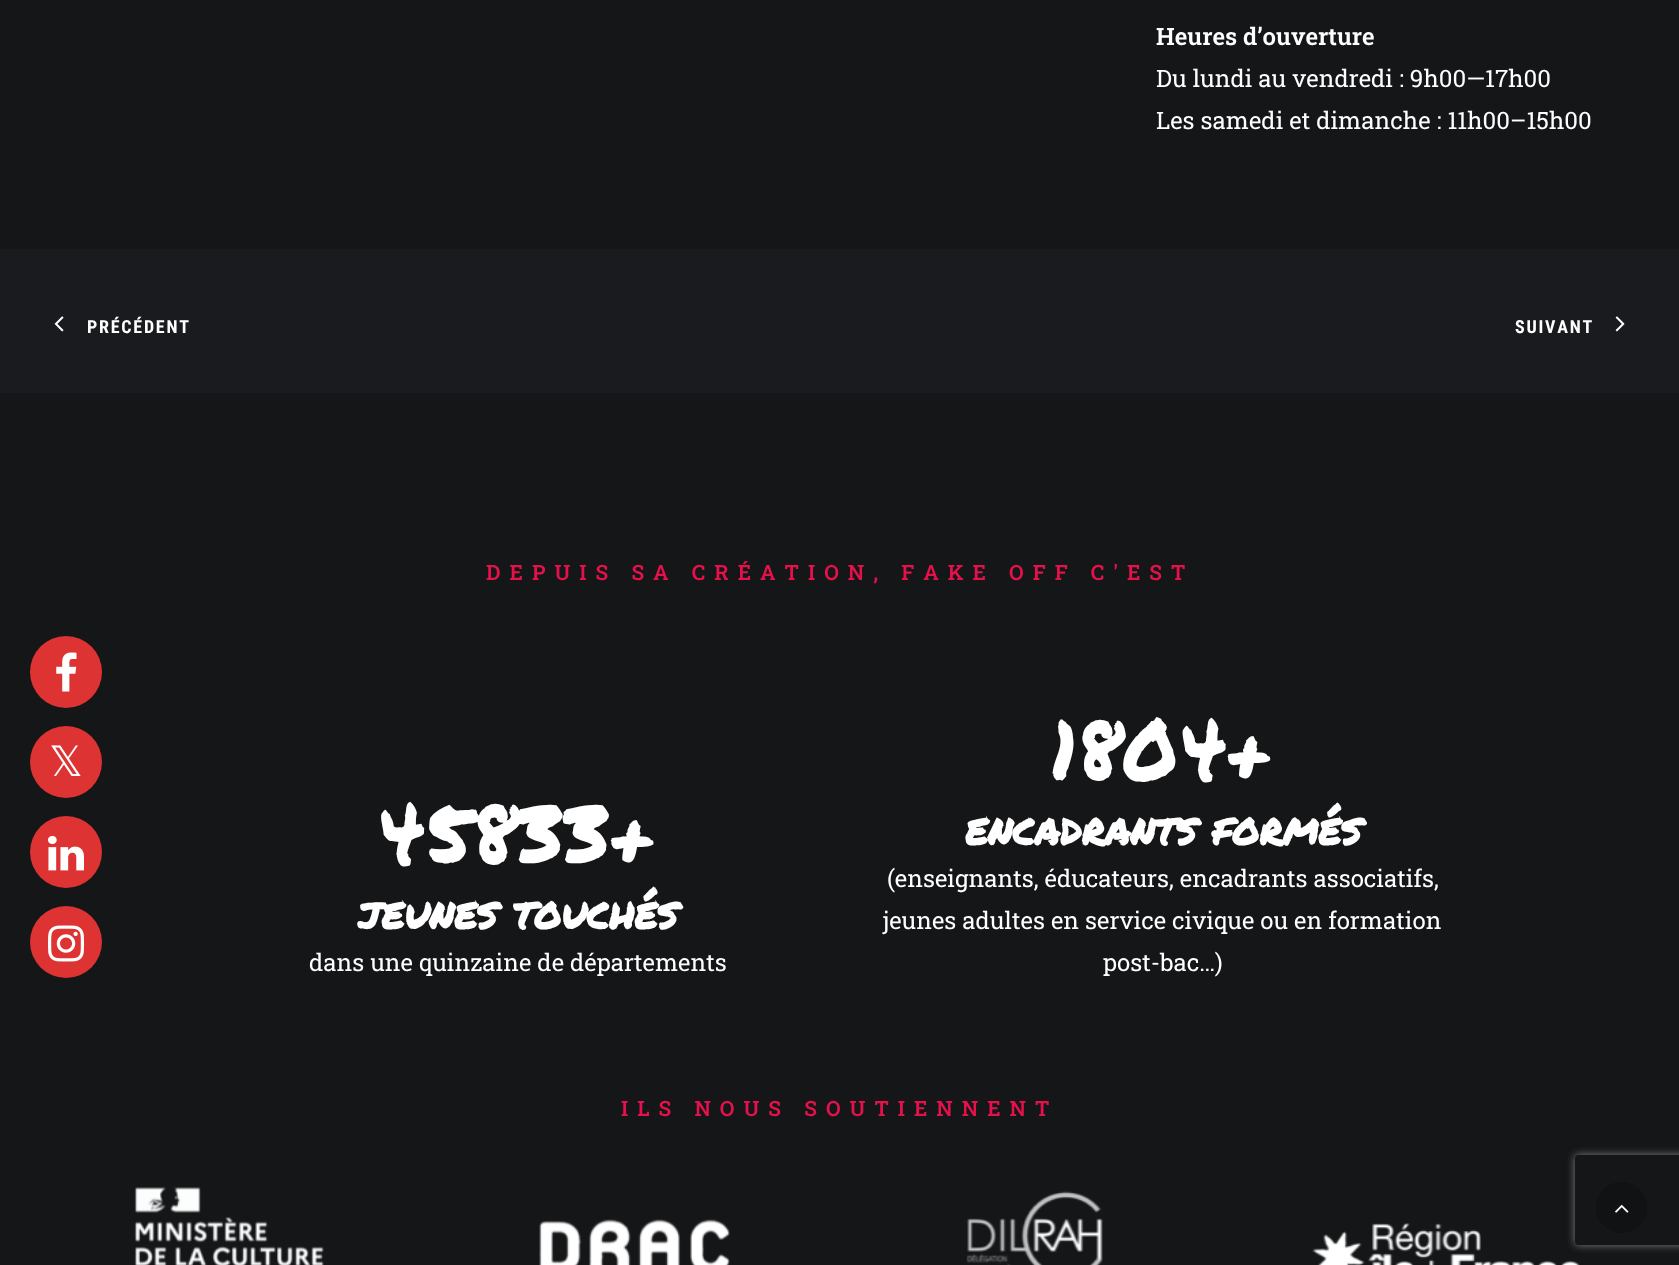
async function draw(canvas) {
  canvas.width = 1679;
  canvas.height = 1265;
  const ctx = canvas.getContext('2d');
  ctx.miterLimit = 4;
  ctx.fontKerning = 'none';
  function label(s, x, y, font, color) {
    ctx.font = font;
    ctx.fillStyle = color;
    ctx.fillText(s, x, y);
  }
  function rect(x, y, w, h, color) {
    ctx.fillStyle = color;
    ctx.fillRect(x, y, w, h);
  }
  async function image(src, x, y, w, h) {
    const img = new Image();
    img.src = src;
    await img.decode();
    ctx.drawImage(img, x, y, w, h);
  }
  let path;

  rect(0, 0, 1679, 1265, '#141618');
  ctx.fillStyle = '#d33';
  ctx.beginPath();
  ctx.arc(66, 672, 36, 0, 2 * Math.PI);
  ctx.fill();
  await image('assets/img1.png', 56, 652, 21, 40);
  ctx.beginPath();
  ctx.arc(66, 762, 36, 0, 2 * Math.PI);
  ctx.fill();
  label('𝕏', 49, 776, '42px DejaVu Sans', '#fff');
  ctx.fillStyle = '#d33';
  ctx.beginPath();
  ctx.arc(66, 852, 36, 0, 2 * Math.PI);
  ctx.fill();
  await image('assets/img2.png', 48, 836, 36, 35);
  ctx.beginPath();
  ctx.arc(66, 942, 36, 0, 2 * Math.PI);
  ctx.fill();
  await image('assets/img3.png', 48, 925, 36, 37);
  label('Heures d’ouverture', 1156, 45, '600 24px Roboto Slab', '#fff');
  label('Du lundi au vendredi : 9h00—17h00', 1156, 87, '24px Roboto Slab', '#fff');
  label('Les samedi et dimanche : 11h00–15h00', 1156, 129, '24px Roboto Slab', '#fff');
  rect(0, 249, 1679, 144, '#191b1e');
  await image('assets/img4.png', 54, 316, 10, 16);
  ctx.letterSpacing = '1.75px';
  label('PRÉCÉDENT', 87, 333, 'bold 18px Roboto Condensed', '#fff');
  label('SUIVANT', 1515, 333, 'bold 18px Roboto Condensed', '#fff');
  await image('assets/img5.png', 1615, 316, 10, 16);
  ctx.letterSpacing = '9px';
  label('DEPUIS SA CRÉATION, FAKE OFF C\'EST', 486, 580, '600 21px Roboto Slab', '#e5114a');
  ctx.letterSpacing = '0px';
  label('45833+', 377, 864, '82.5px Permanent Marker', '#fff');
  label('jeunes touchés', 358, 929, 'bold 43.5px Permanent Marker', '#fff');
  label('dans une quinzaine de départements', 309, 971, '24px Roboto Slab', '#fff');
  label('1804+', 1051, 780, '82.5px Permanent Marker', '#fff');
  label('encadrants formés', 965, 845, 'bold 43.5px Permanent Marker', '#fff');
  label('(enseignants, éducateurs, encadrants associatifs,', 887, 887, '24px Roboto Slab', '#fff');
  label('jeunes adultes en service civique ou en formation', 883, 929, '24px Roboto Slab', '#fff');
  label('post-bac…)', 1103, 971, '24px Roboto Slab', '#fff');
  ctx.letterSpacing = '9px';
  label('ILS NOUS SOUTIENNENT', 621, 1116, '600 21px Roboto Slab', '#e5114a');
  await image('assets/img6.png', 134, 1187, 190, 78);
  await image('assets/img7.png', 539, 1219, 191, 46);
  await image('assets/img8.png', 966, 1191, 137, 74);
  await image('assets/img9.png', 1312, 1223, 268, 42);
  ctx.save();
  path = new Path2D('M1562 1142H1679V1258H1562ZM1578 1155H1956C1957.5 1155 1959 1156.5 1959 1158V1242C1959 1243.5 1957.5 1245 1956 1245H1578C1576.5 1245 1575 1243.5 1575 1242V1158C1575 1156.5 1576.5 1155 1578 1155Z');
  ctx.clip(path, 'evenodd');
  ctx.fillStyle = '#808080';
  ctx.filter = 'blur(4px)';
  ctx.beginPath();
  ctx.roundRect(1575, 1155, 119, 90, 3);
  ctx.fill();
  ctx.filter = 'none';
  ctx.restore();
  ctx.fillStyle = '#101213';
  ctx.beginPath();
  ctx.arc(1621.5, 1207.5, 25.5, 0, 2 * Math.PI);
  ctx.fill();
  await image('assets/img10.png', 1615, 1204, 14, 9);
}

draw(document.querySelector('canvas'));
